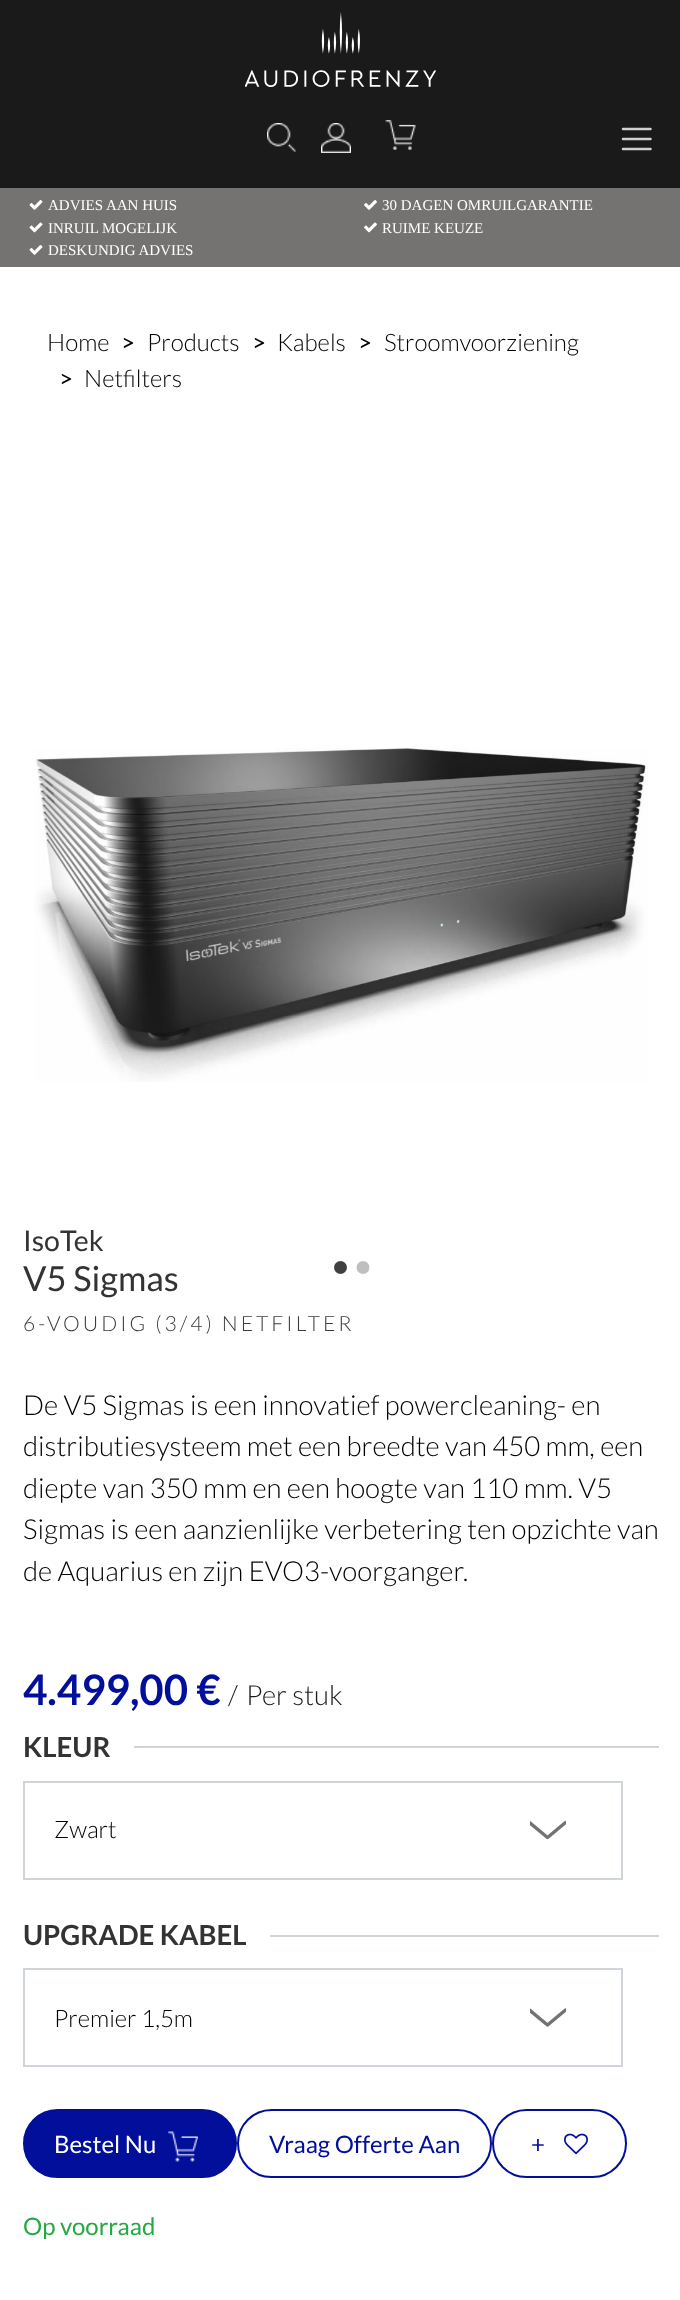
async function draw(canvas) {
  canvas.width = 680;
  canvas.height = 2300;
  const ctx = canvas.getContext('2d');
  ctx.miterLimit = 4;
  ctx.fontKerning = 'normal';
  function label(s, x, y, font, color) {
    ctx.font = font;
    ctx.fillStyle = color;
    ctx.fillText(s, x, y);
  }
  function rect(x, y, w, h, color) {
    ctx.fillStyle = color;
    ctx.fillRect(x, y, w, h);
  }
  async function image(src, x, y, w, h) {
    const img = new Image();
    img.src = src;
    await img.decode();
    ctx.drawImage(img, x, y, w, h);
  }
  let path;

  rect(0, 0, 680, 2300, '#1a1a1a');
  await image('assets/img1.png', 245, 12, 192, 75);
  await image('assets/img2.png', 267, 123, 29, 29);
  await image('assets/img3.png', 321, 123, 30, 30);
  await image('assets/img4.png', 385, 120, 31, 30);
  path = new Path2D('M623 129H650.5M623 139H650.5M623 149H650.5');
  ctx.strokeStyle = '#d1d1d1';
  ctx.lineWidth = 2.5;
  ctx.lineCap = 'round';
  ctx.stroke(path);
  rect(0, 188, 680, 79, '#747372');
  await image('assets/img5.png', 29, 200, 14, 10);
  label('ADVIES AAN HUIS', 48, 210, '15px Liberation Serif', '#fff');
  await image('assets/img6.png', 364, 200, 13, 10);
  label('30 DAGEN OMRUILGARANTIE', 382, 210, '15px Liberation Serif', '#fff');
  await image('assets/img7.png', 29, 222, 14, 11);
  label('INRUIL MOGELIJK', 48, 233, '15px Liberation Serif', '#fff');
  await image('assets/img8.png', 364, 222, 13, 11);
  label('RUIME KEUZE', 382, 233, '15px Liberation Serif', '#fff');
  await image('assets/img5.png', 29, 245, 14, 10);
  label('DESKUNDIG ADVIES', 48, 255, '15px Liberation Serif', '#fff');
  rect(0, 267, 680, 2033, '#fff');
  label('Home', 47, 351, '300 24px Lato', '#000');
  label('>', 121, 351, '24px Lato', '#000');
  label('Products', 147, 351, '300 24px Lato', '#000');
  label('>', 252, 351, '24px Lato', '#000');
  label('Kabels', 277, 351, '300 24px Lato', '#000');
  label('>', 358, 351, '24px Lato', '#000');
  label('Stroomvoorziening', 384, 351, '300 24px Lato', '#000');
  label('>', 59, 387, '24px Lato', '#000');
  label('Netfilters', 84, 387, '300 24px Lato', '#000');
  await image('assets/img9.png', 34, 748, 614, 334);
  await image('assets/img10.png', 334, 1261, 13, 13);
  await image('assets/img11.png', 356, 1261, 14, 13);
  label('IsoTek', 23, 1251, '28.5px Lato', '#333');
  label('V5 Sigmas', 23, 1291, '34.5px Lato', '#333');
  ctx.letterSpacing = '3px';
  label('6-VOUDIG (3/4) NETFILTER', 23, 1331, '300 21px Lato', '#3b3b3b');
  ctx.letterSpacing = '0px';
  label('De V5 Sigmas is een innovatief powercleaning- en', 23, 1415, '300 27.6px Lato', '#000');
  label('distributiesysteem met een breedte van 450 mm, een', 23, 1456, '300 27.6px Lato', '#000');
  label('diepte van 350 mm en een hoogte van 110 mm. V5', 23, 1498, '300 27.6px Lato', '#000');
  label('Sigmas is een aanzienlijke verbetering ten opzichte van', 23, 1539, '300 27.6px Lato', '#000');
  label('de Aquarius en zijn EVO3-voorganger.', 23, 1581, '300 27.6px Lato', '#000');
  label('4.499,00 €', 23, 1705, 'bold 42px Lato', '#020f9b');
  label('/', 228, 1705, '300 27.6px Lato', '#1a1a1a');
  label('Per stuk', 246, 1705, '300 27.6px Lato', '#1a1a1a');
  label('KLEUR', 23, 1757, 'bold 27.6px Lato', '#333');
  rect(134, 1746, 525, 2, '#ced4da');
  ctx.save();
  ctx.beginPath();
  ctx.rect(530, 1818, 36, 24);
  ctx.clip();
  path = new Path2D('M565.5 1822.5L547.5 1837.5L529.5 1822.5');
  ctx.strokeStyle = '#747372';
  ctx.lineWidth = 3.4;
  ctx.lineJoin = 'round';
  ctx.stroke(path);
  ctx.restore();
  ctx.strokeStyle = '#ced4da';
  ctx.lineWidth = 2;
  ctx.strokeRect(24, 1782, 598, 97);
  label('Zwart', 54, 1838, '300 24px Lato', '#000');
  label('UPGRADE KABEL', 23, 1945, 'bold 27.6px Lato', '#333');
  rect(270, 1935, 389, 2, '#ced4da');
  ctx.save();
  ctx.beginPath();
  ctx.rect(530, 2006, 36, 24);
  ctx.clip();
  path = new Path2D('M565.5 2010L547.5 2025L529.5 2010');
  ctx.strokeStyle = '#747372';
  ctx.lineWidth = 3.4;
  ctx.lineJoin = 'round';
  ctx.stroke(path);
  ctx.restore();
  ctx.strokeRect(24, 1969, 598, 97);
  label('Premier 1,5m', 54, 2027, '300 24px Lato', '#000');
  ctx.fillStyle = '#020f9b';
  ctx.beginPath();
  ctx.roundRect(24, 2110, 212, 67, 33.5);
  ctx.fill();
  ctx.strokeStyle = '#020f9b';
  ctx.stroke();
  label('Bestel Nu', 54, 2153, '24px Lato', '#fff');
  await image('assets/img12.png', 168, 2131, 30, 31);
  ctx.beginPath();
  ctx.roundRect(238, 2110, 253, 67, 33.5);
  ctx.stroke();
  label('Vraag Offerte Aan', 269, 2153, '24px Lato', '#020f9b');
  ctx.beginPath();
  ctx.roundRect(493, 2110, 133, 67, 33.5);
  ctx.stroke();
  label('+', 531, 2153, '24px Lato', '#020f9b');
  await image('assets/img13.png', 564, 2133, 24, 22);
  label('Op voorraad', 23, 2235, '24px Lato', '#28a745');
}

draw(document.querySelector('canvas'));
